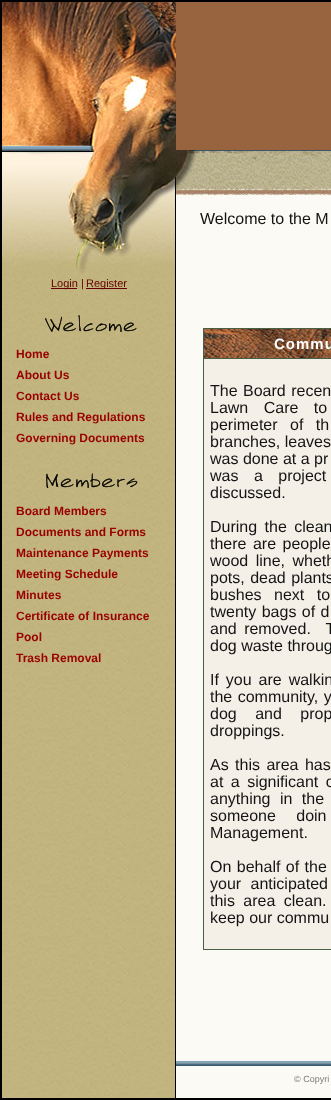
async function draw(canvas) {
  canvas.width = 331;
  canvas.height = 1100;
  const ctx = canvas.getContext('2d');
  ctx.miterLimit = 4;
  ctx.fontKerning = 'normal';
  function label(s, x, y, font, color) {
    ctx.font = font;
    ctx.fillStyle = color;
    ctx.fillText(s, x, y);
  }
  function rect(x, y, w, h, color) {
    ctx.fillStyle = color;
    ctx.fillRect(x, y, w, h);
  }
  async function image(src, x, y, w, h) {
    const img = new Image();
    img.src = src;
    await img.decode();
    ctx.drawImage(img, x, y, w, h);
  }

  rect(0, 0, 331, 1100, '#fbfaf5');
  ctx.strokeStyle = '#000';
  ctx.lineWidth = 2;
  ctx.strokeRect(1, 1, 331, 1098);
  await image('assets/img1.png', 2, 2, 174, 148);
  rect(176, 2, 155, 148, '#98643f');
  await image('assets/img2.png', 2, 150, 174, 60);
  await image('assets/img3.png', 176, 150, 155, 48);
  await image('assets/img4.png', 2, 210, 174, 850);
  await image('assets/img5.png', 2, 210, 173, 65);
  rect(51, 288, 26, 1, '#600');
  label('Login |', 51, 287, '11px Liberation Sans', '#600');
  rect(86, 288, 41, 1, '#600');
  label('Register', 86, 287, '11px Liberation Sans', '#600');
  await image('assets/img6.png', 45, 315, 92, 17);
  label('Home', 16, 358, 'bold 12px Liberation Sans', '#900');
  label('About Us', 16, 379, 'bold 12px Liberation Sans', '#900');
  label('Contact Us', 16, 400, 'bold 12px Liberation Sans', '#900');
  label('Rules and Regulations', 16, 421, 'bold 12px Liberation Sans', '#900');
  label('Governing Documents', 16, 442, 'bold 12px Liberation Sans', '#900');
  await image('assets/img7.png', 46, 473, 92, 15);
  label('Board Members', 16, 515, 'bold 12px Liberation Sans', '#900');
  label('Documents and Forms', 16, 536, 'bold 12px Liberation Sans', '#900');
  label('Maintenance Payments', 16, 557, 'bold 12px Liberation Sans', '#900');
  label('Meeting Schedule', 16, 578, 'bold 12px Liberation Sans', '#900');
  label('Minutes', 16, 599, 'bold 12px Liberation Sans', '#900');
  label('Certificate of Insurance', 16, 620, 'bold 12px Liberation Sans', '#900');
  label('Pool', 16, 641, 'bold 12px Liberation Sans', '#900');
  label('Trash Removal', 16, 662, 'bold 12px Liberation Sans', '#900');
  label('Welcome to the M', 200, 224, '16px Liberation Sans', '#141414');
  rect(203, 328, 128, 622, '#485f43');
  await image('assets/img8.png', 204, 329, 127, 29);
  ctx.letterSpacing = '1px';
  label('Commu', 274, 349, 'bold 15px Liberation Sans', '#fff');
  rect(204, 359, 127, 590, '#f5f0e7');
  ctx.letterSpacing = '0px';
  ctx.wordSpacing = '1px';
  label('The Board recen', 210, 396, '16px Liberation Sans', '#141414');
  ctx.wordSpacing = '11px';
  label('Lawn Care to', 210, 413, '16px Liberation Sans', '#141414');
  ctx.wordSpacing = '8px';
  label('perimeter of th', 210, 430, '16px Liberation Sans', '#141414');
  ctx.wordSpacing = '0px';
  label('branches, leaves', 210, 447, '16px Liberation Sans', '#141414');
  label('was done at a pr', 210, 464, '16px Liberation Sans', '#141414');
  ctx.wordSpacing = '11px';
  label('was a project', 210, 481, '16px Liberation Sans', '#141414');
  ctx.wordSpacing = '0px';
  label('discussed.', 210, 498, '16px Liberation Sans', '#141414');
  ctx.wordSpacing = '3px';
  label('During the clean', 210, 532, '16px Liberation Sans', '#141414');
  ctx.wordSpacing = '2px';
  label('there are people', 210, 549, '16px Liberation Sans', '#141414');
  ctx.wordSpacing = '3px';
  label('wood line, wheth', 210, 566, '16px Liberation Sans', '#141414');
  ctx.wordSpacing = '1px';
  label('pots, dead plants', 210, 583, '16px Liberation Sans', '#141414');
  ctx.wordSpacing = '8px';
  label('bushes next to', 210, 600, '16px Liberation Sans', '#141414');
  ctx.wordSpacing = '1px';
  label('twenty bags of d', 210, 617, '16px Liberation Sans', '#141414');
  ctx.wordSpacing = '3px';
  label('and removed.  T', 210, 634, '16px Liberation Sans', '#141414');
  ctx.wordSpacing = '0px';
  label('dog waste throug', 210, 651, '16px Liberation Sans', '#141414');
  ctx.wordSpacing = '2.5px';
  label('If you are walkin', 210, 685, '16px Liberation Sans', '#141414');
  ctx.wordSpacing = '1px';
  label('the community, y', 210, 702, '16px Liberation Sans', '#141414');
  ctx.wordSpacing = '14px';
  label('dog and prop', 210, 719, '16px Liberation Sans', '#141414');
  ctx.wordSpacing = '0px';
  label('droppings.', 210, 736, '16px Liberation Sans', '#141414');
  ctx.wordSpacing = '2px';
  label('As this area has', 210, 770, '16px Liberation Sans', '#141414');
  ctx.wordSpacing = '3px';
  label('at a significant c', 210, 787, '16px Liberation Sans', '#141414');
  ctx.wordSpacing = '5px';
  label('anything in the', 210, 804, '16px Liberation Sans', '#141414');
  ctx.wordSpacing = '16px';
  label('someone doin', 210, 821, '16px Liberation Sans', '#141414');
  ctx.wordSpacing = '0px';
  label('Management.', 210, 838, '16px Liberation Sans', '#141414');
  ctx.wordSpacing = '1px';
  label('On behalf of the', 210, 872, '16px Liberation Sans', '#141414');
  ctx.wordSpacing = '5px';
  label('your anticipated', 210, 889, '16px Liberation Sans', '#141414');
  ctx.wordSpacing = '4px';
  label('this area clean.', 210, 906, '16px Liberation Sans', '#141414');
  ctx.wordSpacing = '0px';
  label('keep our commu', 210, 923, '16px Liberation Sans', '#141414');
  await image('assets/img9.png', 2, 1060, 174, 38);
  await image('assets/img10.png', 176, 1060, 155, 7);
  label('© Copyri', 294, 1082, '9px Liberation Sans', '#7c7c7c');
}

draw(document.querySelector('canvas'));
